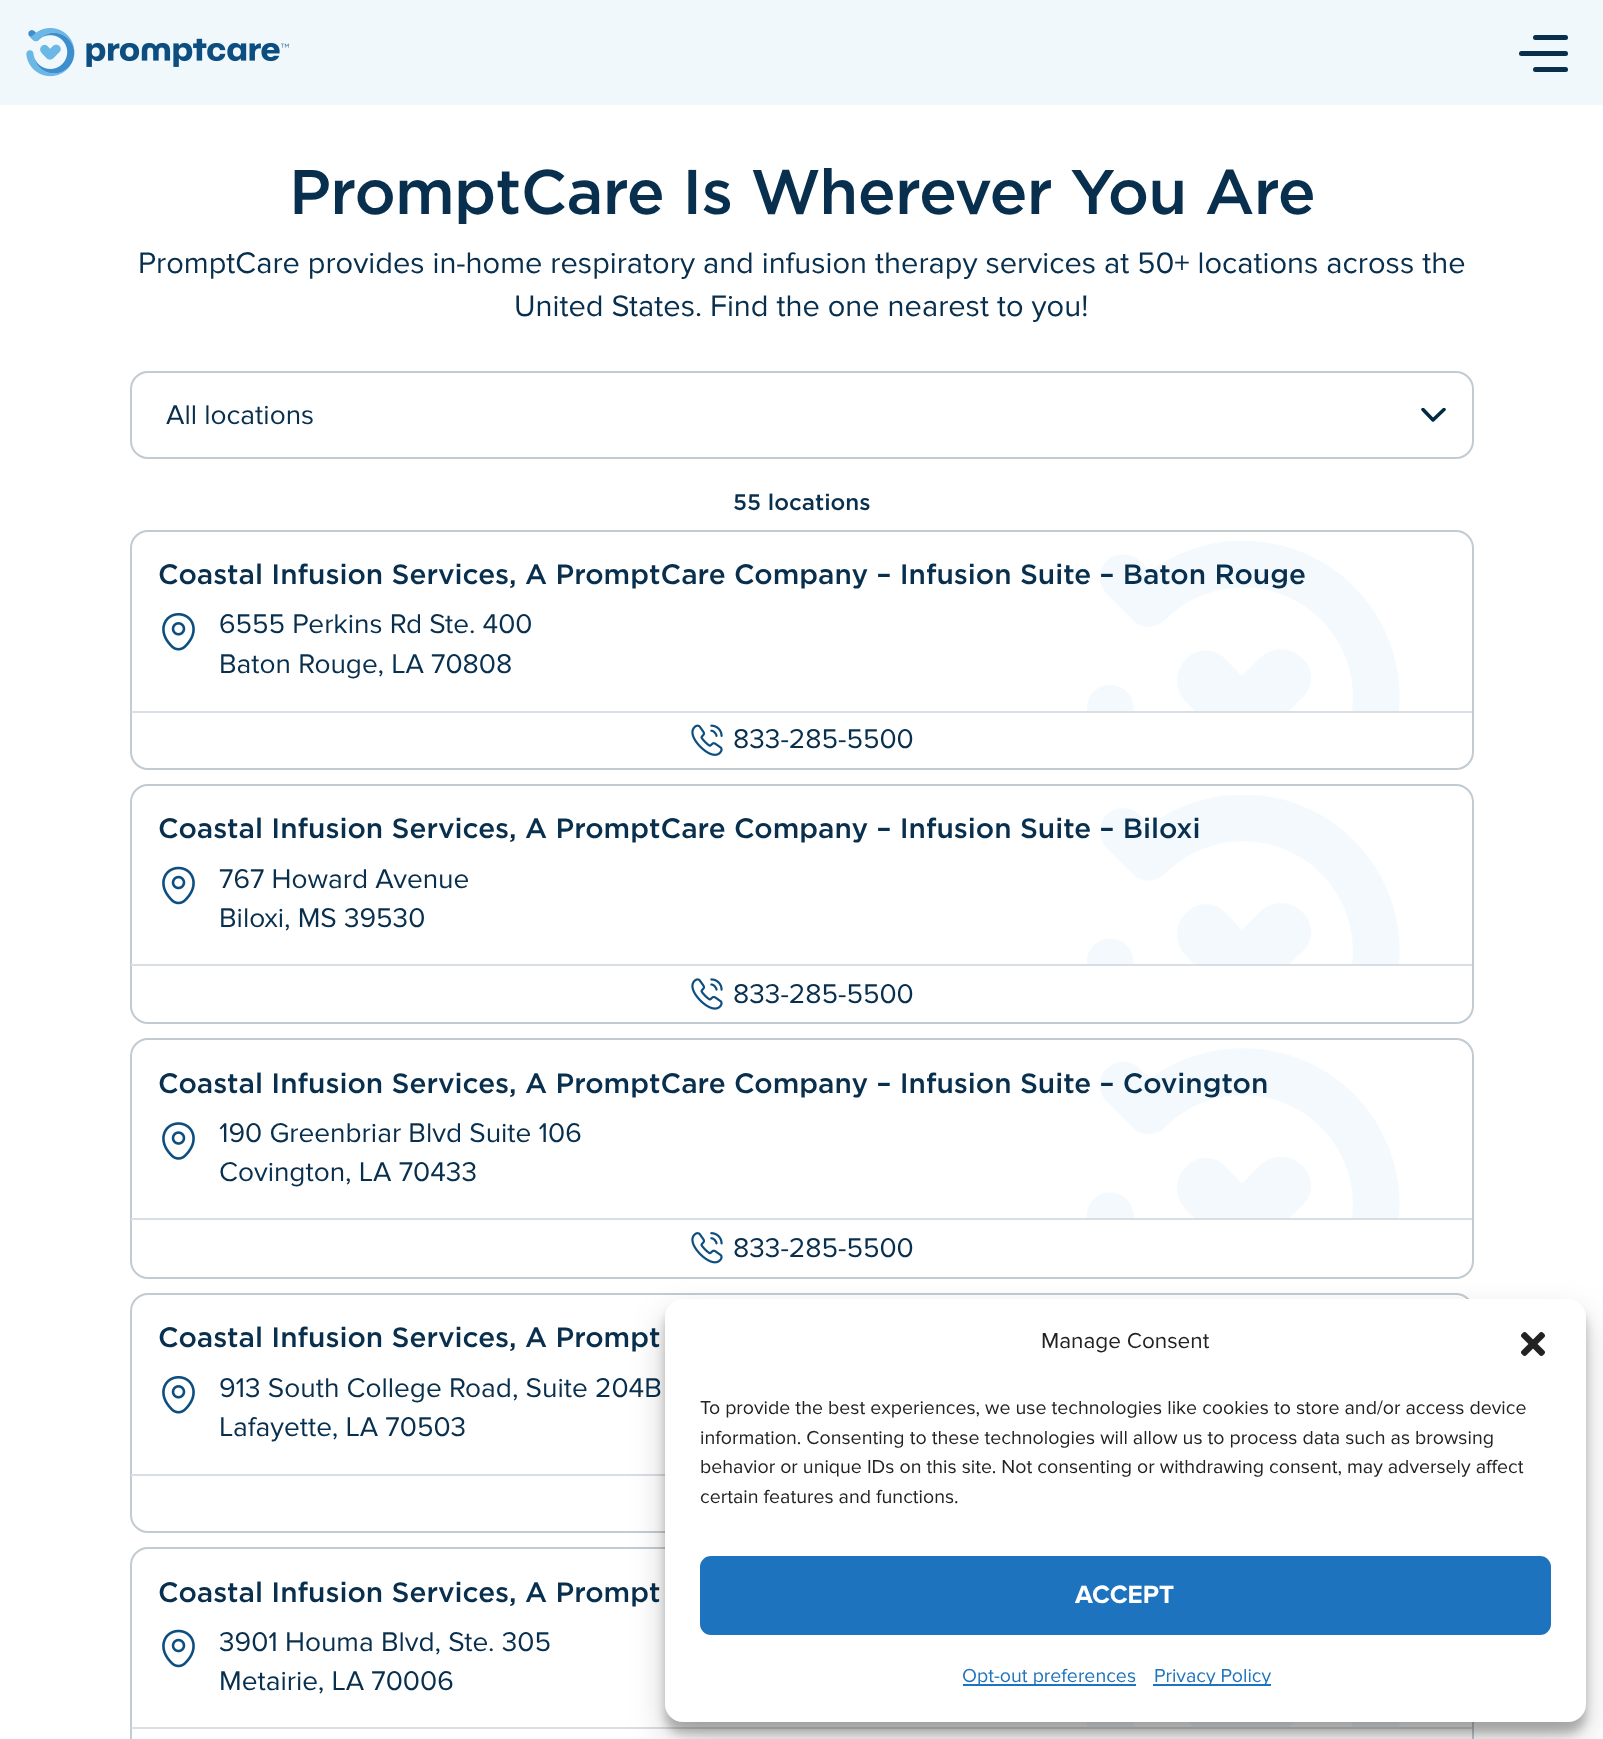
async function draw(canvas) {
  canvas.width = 1603;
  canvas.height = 1739;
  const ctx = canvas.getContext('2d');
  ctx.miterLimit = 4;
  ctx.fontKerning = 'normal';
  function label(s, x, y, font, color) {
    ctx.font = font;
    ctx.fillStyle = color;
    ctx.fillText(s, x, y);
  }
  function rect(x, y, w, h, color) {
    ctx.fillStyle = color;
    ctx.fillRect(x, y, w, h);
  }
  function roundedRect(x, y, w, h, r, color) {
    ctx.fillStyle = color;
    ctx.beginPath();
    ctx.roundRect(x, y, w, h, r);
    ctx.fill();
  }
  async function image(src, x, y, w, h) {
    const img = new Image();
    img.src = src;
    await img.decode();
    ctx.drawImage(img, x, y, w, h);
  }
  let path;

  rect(0, 0, 1603, 1739, '#fff');
  rect(0, 0, 1603, 105, '#f0f8fc');
  await image('assets/img1.png', 26, 28, 263, 49);
  roundedRect(1519, 51, 49, 5, 2.5, '#082f4d');
  roundedRect(1533, 35, 35, 5, 2.5, '#082f4d');
  roundedRect(1533, 67, 35, 5, 2.5, '#082f4d');
  ctx.letterSpacing = '-0.75px';
  label('PromptCare Is Wherever You Are', 289, 214, '500 63px Gotham', '#082f4d');
  ctx.letterSpacing = '0px';
  label('PromptCare provides in-home respiratory and infusion therapy services at 50+ locations across the', 138, 273, '30.8px Proxima Nova', '#082f4d');
  label('United States. Find the one nearest to you!', 514, 316, '30.8px Proxima Nova', '#082f4d');
  ctx.save();
  ctx.beginPath();
  ctx.rect(1421, 408, 25, 14);
  ctx.clip();
  path = new Path2D('M1444 409.5L1433 420L1423 409.5');
  ctx.strokeStyle = '#002b41';
  ctx.lineWidth = 3.5;
  ctx.lineCap = 'round';
  ctx.lineJoin = 'round';
  ctx.stroke(path);
  ctx.restore();
  ctx.beginPath();
  ctx.roundRect(131, 372, 1342, 86, 17);
  ctx.strokeStyle = '#c1cbd2';
  ctx.lineWidth = 2;
  ctx.stroke();
  label('All locations', 166, 424, '28px Proxima Nova', '#082f4d');
  label('55 locations', 733, 510, '500 22.5px Gotham', '#082f4d');
  ctx.beginPath();
  ctx.roundRect(131, 531, 1342, 238, 17);
  ctx.stroke();
  await image('assets/img2.png', 1087, 541, 313, 170);
  label('Coastal Infusion Services, A PromptCare Company – Infusion Suite – Baton Rouge', 158, 584, '500 28px Gotham', '#082f4d');
  await image('assets/img3.png', 162, 612, 33, 39);
  label('6555 Perkins Rd Ste. 400', 219, 633, '28px Proxima Nova', '#082f4d');
  label('Baton Rouge, LA 70808', 219, 673, '28px Proxima Nova', '#082f4d');
  rect(131, 711, 1341, 2, '#d9dde4');
  await image('assets/img4.png', 691, 724, 32, 32);
  label('833-285-5500', 733, 748, '28px Proxima Nova', '#082f4d');
  ctx.beginPath();
  ctx.roundRect(131, 785, 1342, 238, 17);
  ctx.stroke();
  await image('assets/img5.png', 1087, 795, 313, 169);
  label('Coastal Infusion Services, A PromptCare Company – Infusion Suite – Biloxi', 158, 838, '500 28px Gotham', '#082f4d');
  await image('assets/img6.png', 162, 866, 33, 39);
  label('767 Howard Avenue', 219, 888, '28px Proxima Nova', '#082f4d');
  label('Biloxi, MS 39530', 219, 927, '28px Proxima Nova', '#082f4d');
  rect(131, 964, 1341, 2, '#d9dde4');
  await image('assets/img7.png', 691, 978, 32, 32);
  label('833-285-5500', 733, 1003, '28px Proxima Nova', '#082f4d');
  ctx.beginPath();
  ctx.roundRect(131, 1039, 1342, 239, 17);
  ctx.stroke();
  await image('assets/img8.png', 1087, 1048, 313, 170);
  label('Coastal Infusion Services, A PromptCare Company – Infusion Suite – Covington', 158, 1093, '500 28px Gotham', '#082f4d');
  await image('assets/img9.png', 162, 1122, 33, 38);
  label('190 Greenbriar Blvd Suite 106', 219, 1142, '28px Proxima Nova', '#082f4d');
  label('Covington, LA 70433', 219, 1181, '28px Proxima Nova', '#082f4d');
  rect(131, 1218, 1341, 2, '#d9dde4');
  await image('assets/img10.png', 691, 1232, 32, 32);
  label('833-285-5500', 733, 1257, '28px Proxima Nova', '#082f4d');
  ctx.beginPath();
  ctx.roundRect(131, 1294, 1342, 238, 17);
  ctx.stroke();
  label('Coastal Infusion Services, A Prompt', 158, 1347, '500 28px Gotham', '#082f4d');
  await image('assets/img3.png', 162, 1375, 33, 39);
  label('913 South College Road, Suite 204B', 219, 1397, '28px Proxima Nova', '#082f4d');
  label('Lafayette, LA 70503', 219, 1436, '28px Proxima Nova', '#082f4d');
  rect(131, 1474, 534, 2, '#d9dde4');
  ctx.beginPath();
  ctx.roundRect(131, 1548, 1342, 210, 17);
  ctx.stroke();
  await image('assets/img11.png', 1087, 1722, 313, 5);
  label('Coastal Infusion Services, A Prompt', 158, 1602, '500 28px Gotham', '#082f4d');
  await image('assets/img6.png', 162, 1629, 33, 39);
  label('3901 Houma Blvd, Ste. 305', 219, 1651, '28px Proxima Nova', '#082f4d');
  label('Metairie, LA 70006', 219, 1690, '28px Proxima Nova', '#082f4d');
  rect(131, 1727, 1341, 2, '#d9dde4');
  ctx.fillStyle = '#0000003b';
  ctx.filter = 'blur(5px)';
  ctx.beginPath();
  ctx.roundRect(665, 1309, 921, 424, 18);
  ctx.fill();
  ctx.filter = 'none';
  ctx.fillStyle = '#00000030';
  ctx.filter = 'blur(17.5px)';
  ctx.beginPath();
  ctx.roundRect(665, 1316, 921, 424, 18);
  ctx.fill();
  ctx.filter = 'none';
  roundedRect(665, 1299, 921, 423, 18, '#fff');
  label('Manage Consent', 1041, 1348, '22.5px Proxima Nova', '#222');
  await image('assets/img12.png', 1521, 1332, 24, 24);
  label('To provide the best experiences, we use technologies like cookies to store and/or access device', 700, 1414, '19.6px Proxima Nova', '#222');
  label('information. Consenting to these technologies will allow us to process data such as browsing', 700, 1444, '19.6px Proxima Nova', '#222');
  label('behavior or unique IDs on this site. Not consenting or withdrawing consent, may adversely affect', 700, 1473, '19.6px Proxima Nova', '#222');
  label('certain features and functions.', 700, 1503, '19.6px Proxima Nova', '#222');
  ctx.fillStyle = '#1e73be';
  ctx.beginPath();
  ctx.roundRect(701, 1557, 849, 77, 10);
  ctx.fill();
  ctx.strokeStyle = '#1e73be';
  ctx.stroke();
  label('ACCEPT', 1075, 1603, 'bold 26px Proxima Nova', '#fff');
  rect(963, 1684, 173, 2, '#1e73be');
  label('Opt-out preferences', 962, 1682, '19.6px Proxima Nova', '#1e73be');
  rect(1153, 1684, 118, 2, '#1e73be');
  label('Privacy Policy', 1154, 1682, '19.6px Proxima Nova', '#1e73be');
}

draw(document.querySelector('canvas'));
